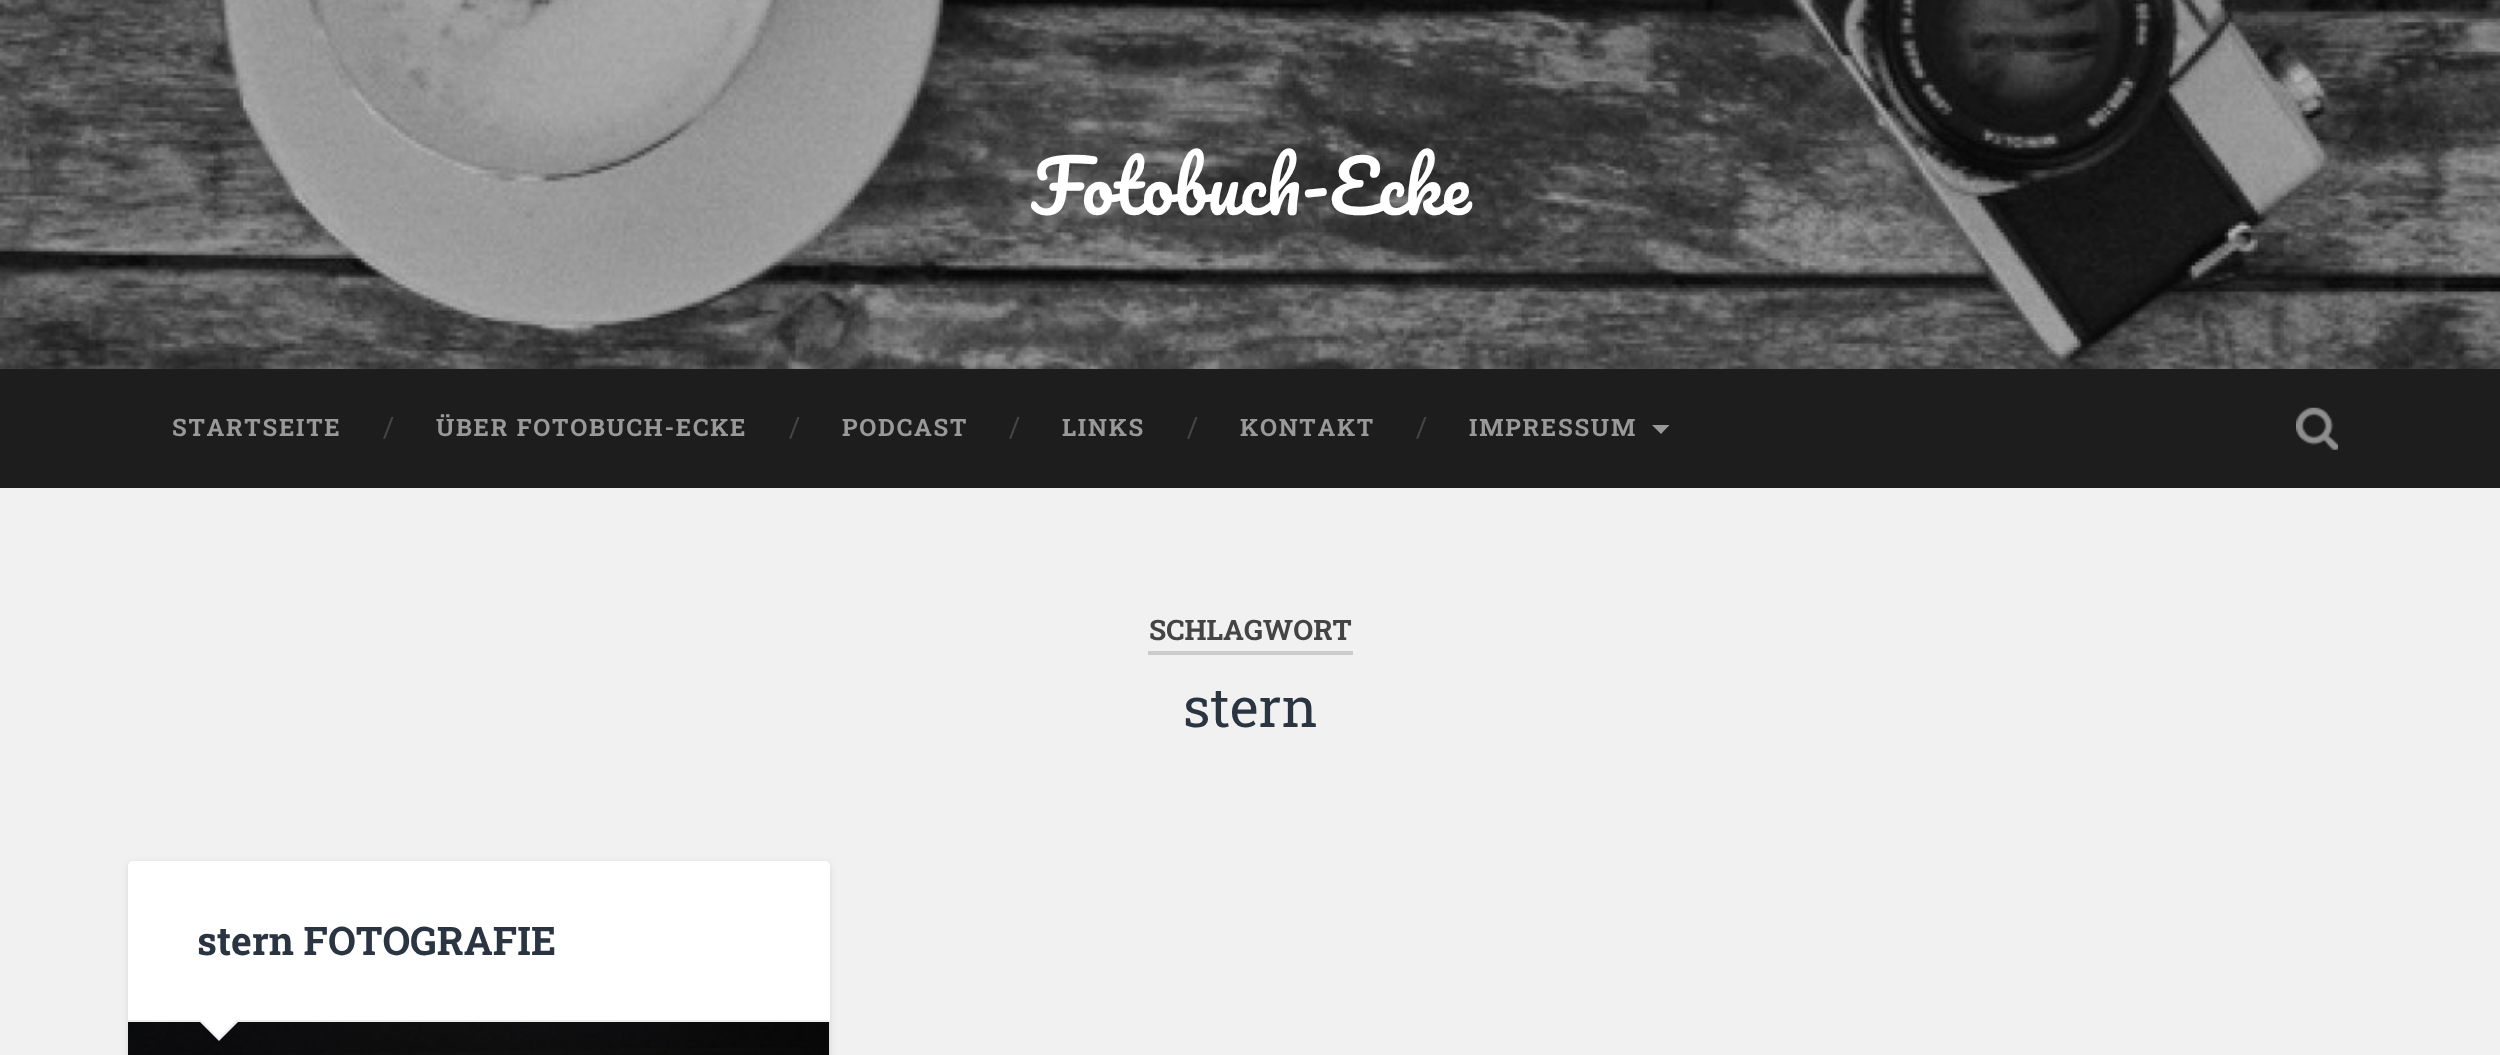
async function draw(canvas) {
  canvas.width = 2500;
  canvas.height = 1055;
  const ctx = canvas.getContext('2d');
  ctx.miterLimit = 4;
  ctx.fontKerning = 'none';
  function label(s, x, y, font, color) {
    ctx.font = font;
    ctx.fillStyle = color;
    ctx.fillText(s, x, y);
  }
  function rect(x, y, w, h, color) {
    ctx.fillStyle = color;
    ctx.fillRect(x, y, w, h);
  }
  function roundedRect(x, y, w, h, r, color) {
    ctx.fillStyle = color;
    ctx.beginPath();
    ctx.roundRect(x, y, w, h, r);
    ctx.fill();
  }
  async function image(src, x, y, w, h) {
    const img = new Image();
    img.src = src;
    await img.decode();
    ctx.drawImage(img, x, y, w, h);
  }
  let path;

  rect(0, 0, 2500, 1055, '#f1f1f1');
  await image('assets/img1.png', 0, 0, 2500, 369);
  label('Fotobuch-Ecke', 1031, 215, '71px Pacifico', '#fff');
  rect(0, 369, 2500, 119, '#1d1d1d');
  ctx.letterSpacing = '1.75px';
  label('STARTSEITE', 172, 436, 'bold 24.1px Roboto Slab', '#999');
  ctx.letterSpacing = '0px';
  label('/', 383, 437, '28px Roboto Slab', '#444');
  ctx.letterSpacing = '1.75px';
  label('ÜBER FOTOBUCH-ECKE', 436, 436, 'bold 24.1px Roboto Slab', '#999');
  ctx.letterSpacing = '0px';
  label('/', 789, 437, '28px Roboto Slab', '#444');
  ctx.letterSpacing = '1.75px';
  label('PODCAST', 842, 436, 'bold 24.1px Roboto Slab', '#999');
  ctx.letterSpacing = '0px';
  label('/', 1009, 437, '28px Roboto Slab', '#444');
  ctx.letterSpacing = '1.75px';
  label('LINKS', 1062, 436, 'bold 24.1px Roboto Slab', '#999');
  ctx.letterSpacing = '0px';
  label('/', 1187, 437, '28px Roboto Slab', '#444');
  ctx.letterSpacing = '1.75px';
  label('KONTAKT', 1240, 436, 'bold 24.1px Roboto Slab', '#999');
  ctx.letterSpacing = '0px';
  label('/', 1416, 437, '28px Roboto Slab', '#444');
  ctx.letterSpacing = '1.75px';
  label('IMPRESSUM', 1469, 436, 'bold 24.1px Roboto Slab', '#999');
  path = new Path2D('M1652 425H1669.5L1661 434Z');
  ctx.fill(path);
  await image('assets/img2.png', 2296, 407, 42, 43);
  rect(1148, 651, 205, 4, '#ccc');
  ctx.letterSpacing = '0px';
  label('SCHLAGWORT', 1149, 640, 'bold 28.25px Roboto Slab', '#444');
  label('stern', 1183, 727, '55px Roboto Slab', '#2b3542');
  ctx.fillStyle = '#0000001a';
  ctx.filter = 'blur(3.5px)';
  ctx.beginPath();
  ctx.roundRect(128, 863, 702, 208, 5);
  ctx.fill();
  ctx.filter = 'none';
  roundedRect(128, 861, 702, 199, 5, '#fff');
  rect(128, 1020, 702, 2, '#eee');
  label('stern FOTOGRAFIE', 197, 955, 'bold 39.4px Roboto Slab', '#2b3542');
  await image('assets/img3.png', 128, 1022, 702, 33);
  ctx.fillStyle = '#eee';
  path = new Path2D('M198 1020H240L219 1041Z');
  ctx.fill(path);
  ctx.fillStyle = '#fff';
  path = new Path2D('M199.5 1018.5H238L219 1038Z');
  ctx.fill(path);
}

draw(document.querySelector('canvas'));
